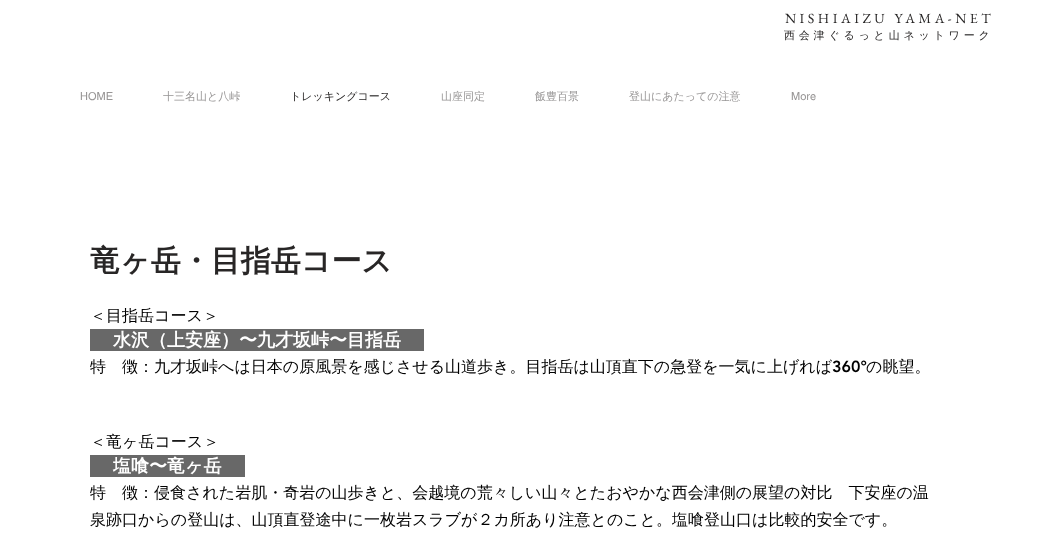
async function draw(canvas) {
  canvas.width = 1057;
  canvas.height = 557;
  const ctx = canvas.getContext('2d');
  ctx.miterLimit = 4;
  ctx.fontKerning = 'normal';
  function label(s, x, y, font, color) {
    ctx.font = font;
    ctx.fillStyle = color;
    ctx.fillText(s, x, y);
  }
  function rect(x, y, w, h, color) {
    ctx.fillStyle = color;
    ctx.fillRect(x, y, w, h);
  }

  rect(0, 0, 1057, 557, '#fff');
  ctx.letterSpacing = '3.5px';
  label('NISHIAIZU YAMA-NET', 785, 23, '14px EB Garamond', '#282626');
  ctx.letterSpacing = '3.8px';
  label('西会津ぐるっと山ネットワーク', 784, 39, '500 11px WenQuanYi Zen Hei', '#282626');
  ctx.letterSpacing = '0px';
  label('HOME', 80, 100, '11px helvetica', '#979595');
  label('十三名山と八峠', 163, 100, '500 11px WenQuanYi Zen Hei', '#979595');
  label('トレッキングコース', 290, 100, '500 11px WenQuanYi Zen Hei', '#282626');
  label('山座同定', 441, 100, '500 11px WenQuanYi Zen Hei', '#979595');
  label('飯豊百景', 535, 100, '500 11px WenQuanYi Zen Hei', '#979595');
  label('登山にあたっての注意', 629, 100, '500 11px WenQuanYi Zen Hei', '#979595');
  label('More', 791, 100, '11px helvetica', '#979595');
  label('竜ヶ岳・目指岳コース', 90, 271, 'bold 30px WenQuanYi Zen Hei', '#282626');
  label('＜目指岳コース＞', 90, 321, '500 16px WenQuanYi Zen Hei', '#000');
  rect(90, 329, 334, 22, '#686868');
  label('水沢（上安座）〜九才坂峠〜目指岳', 113, 346, 'bold 18px WenQuanYi Zen Hei', '#fff');
  label('特　徴：九才坂峠へは日本の原風景を感じさせる山道歩き。目指岳は山頂直下の急登を一気に上げれば', 90, 372, '500 16px WenQuanYi Zen Hei', '#000');
  label('360°', 832, 372, '900 16px "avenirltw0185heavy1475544"', '#000');
  label('の眺望。', 866, 372, '500 16px WenQuanYi Zen Hei', '#000');
  label('＜竜ヶ岳コース＞', 90, 447, '500 16px WenQuanYi Zen Hei', '#000');
  rect(90, 455, 155, 22, '#686868');
  label('塩喰〜竜ヶ岳', 113, 472, 'bold 18px WenQuanYi Zen Hei', '#fff');
  label('特　徴：侵食された岩肌・奇岩の山歩きと、会越境の荒々しい山々とたおやかな西会津側の展望の対比　下安座の温', 90, 498, '500 16px WenQuanYi Zen Hei', '#000');
  label('泉跡口からの登山は、山頂直登途中に一枚岩スラブが２カ所あり注意とのこと。塩喰登山口は比較的安全です。', 90, 525, '500 16px WenQuanYi Zen Hei', '#000');
}

draw(document.querySelector('canvas'));
